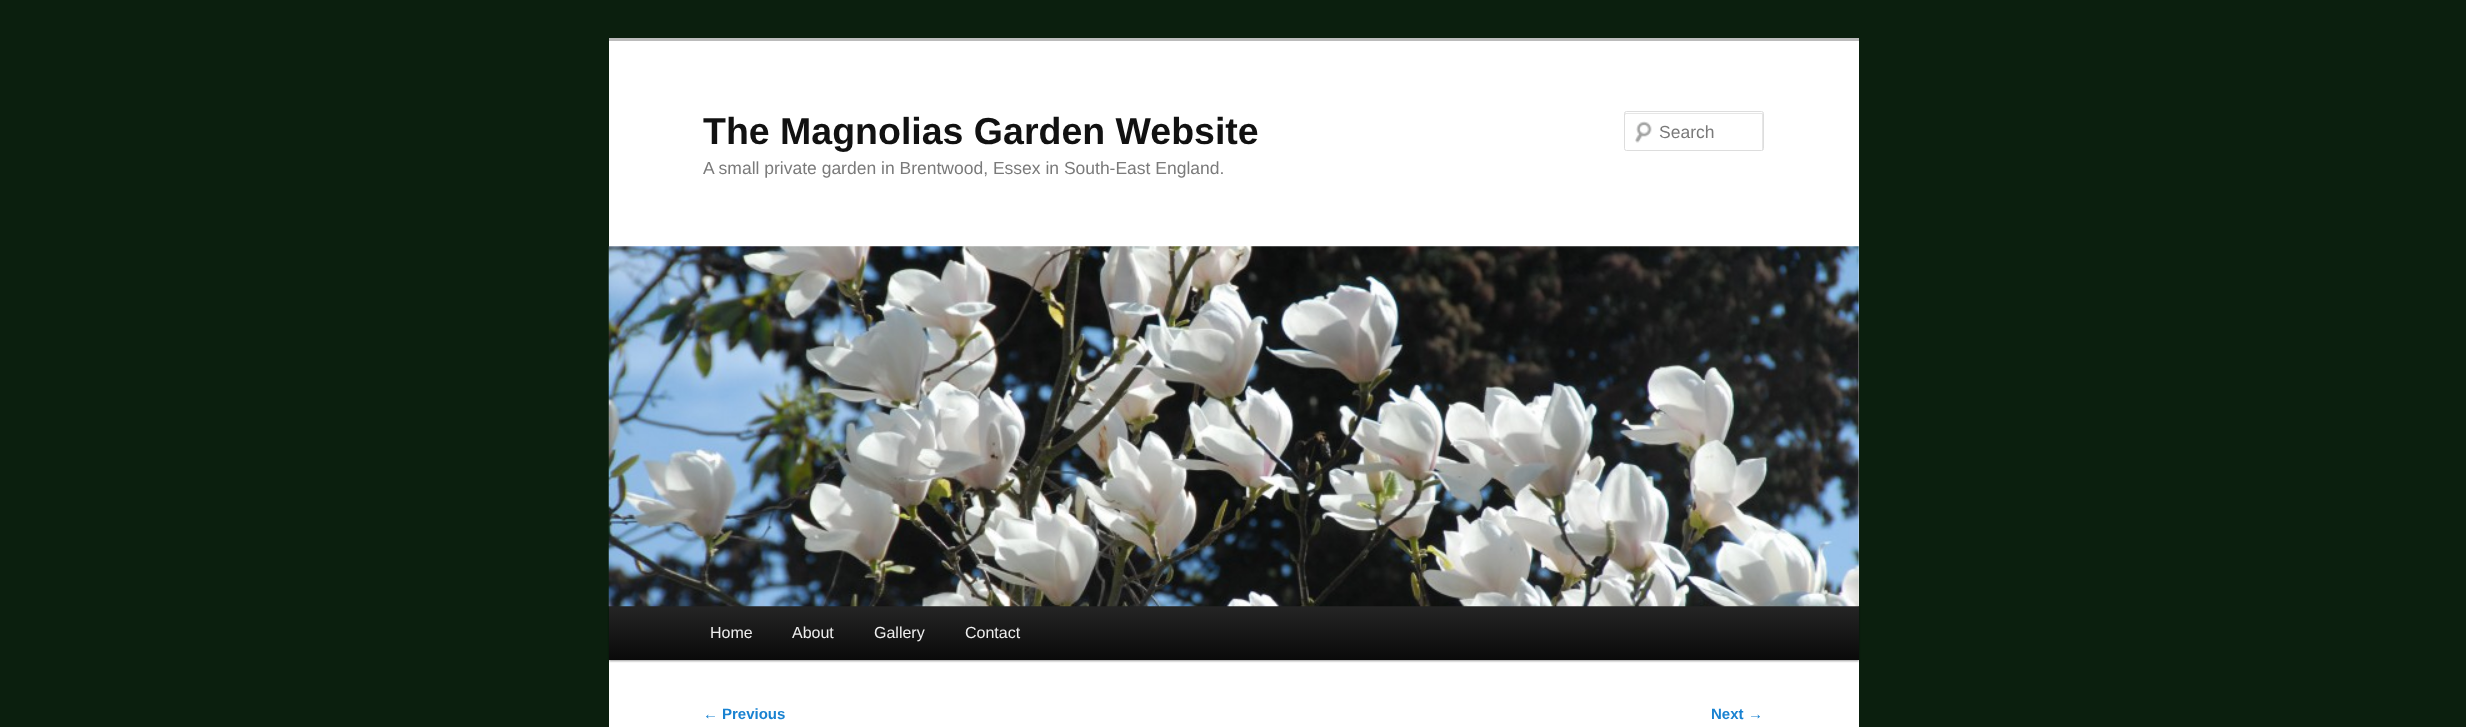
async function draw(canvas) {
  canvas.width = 2466;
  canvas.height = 727;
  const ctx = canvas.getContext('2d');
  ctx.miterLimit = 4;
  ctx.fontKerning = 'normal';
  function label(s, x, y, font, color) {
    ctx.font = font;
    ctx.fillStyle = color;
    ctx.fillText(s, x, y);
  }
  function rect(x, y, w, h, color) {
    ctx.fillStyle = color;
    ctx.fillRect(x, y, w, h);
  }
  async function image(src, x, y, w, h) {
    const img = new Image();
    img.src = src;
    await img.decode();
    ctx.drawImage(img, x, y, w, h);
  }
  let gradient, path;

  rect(0, 0, 2466, 727, '#0b1f0e');
  rect(609, 41, 1250, 686, '#fff');
  rect(609, 38, 1250, 3, '#bbb');
  label('The Magnolias Garden Website', 703, 144, 'bold 37.5px Liberation Sans', '#111');
  label('A small private garden in Brentwood, Essex in South-East England.', 703, 174, '17.5px Liberation Sans', '#7a7a7a');
  await image('assets/img1.png', 1635, 121, 17, 22);
  ctx.fillStyle = '#e6e6e6';
  path = new Path2D('M1626 114H1761C1762 114 1762 114 1762 115V150C1763 150 1763 150 1763 149V114C1763 113 1763 113 1762 113H1626C1625 113 1625 113 1625 114V115Z');
  ctx.fill(path);
  ctx.beginPath();
  ctx.roundRect(1624.5, 111.5, 139, 39, 2);
  ctx.strokeStyle = '#ddd';
  ctx.stroke();
  label('Search', 1659, 138, '17.5px Liberation Sans', '#7a7a7a');
  ctx.fillStyle = '#00000066';
  ctx.filter = 'blur(1px)';
  ctx.beginPath();
  ctx.rect(609, 608, 1250, 53);
  ctx.fill();
  ctx.filter = 'none';
  gradient = ctx.createLinearGradient(1234, 606, 1234, 660);
  gradient.addColorStop(0, '#252525');
  gradient.addColorStop(1, '#0a0a0a');
  ctx.fillStyle = gradient;
  ctx.fillRect(609, 606, 1250, 54);
  await image('assets/img2.png', 608, 246, 1251, 361);
  label('Home', 710, 638, '16px Liberation Sans', '#eee');
  label('About', 792, 638, '16px Liberation Sans', '#eee');
  label('Gallery', 874, 638, '16px Liberation Sans', '#eee');
  label('Contact', 965, 638, '16px Liberation Sans', '#eee');
  label('←', 703, 719, '15px Liberation Sans', '#1982d1');
  label('Previous', 722, 719, 'bold 15px Liberation Sans', '#1982d1');
  label('Next', 1711, 719, 'bold 15px Liberation Sans', '#1982d1');
  label('→', 1748, 719, '15px Liberation Sans', '#1982d1');
}

draw(document.querySelector('canvas'));
